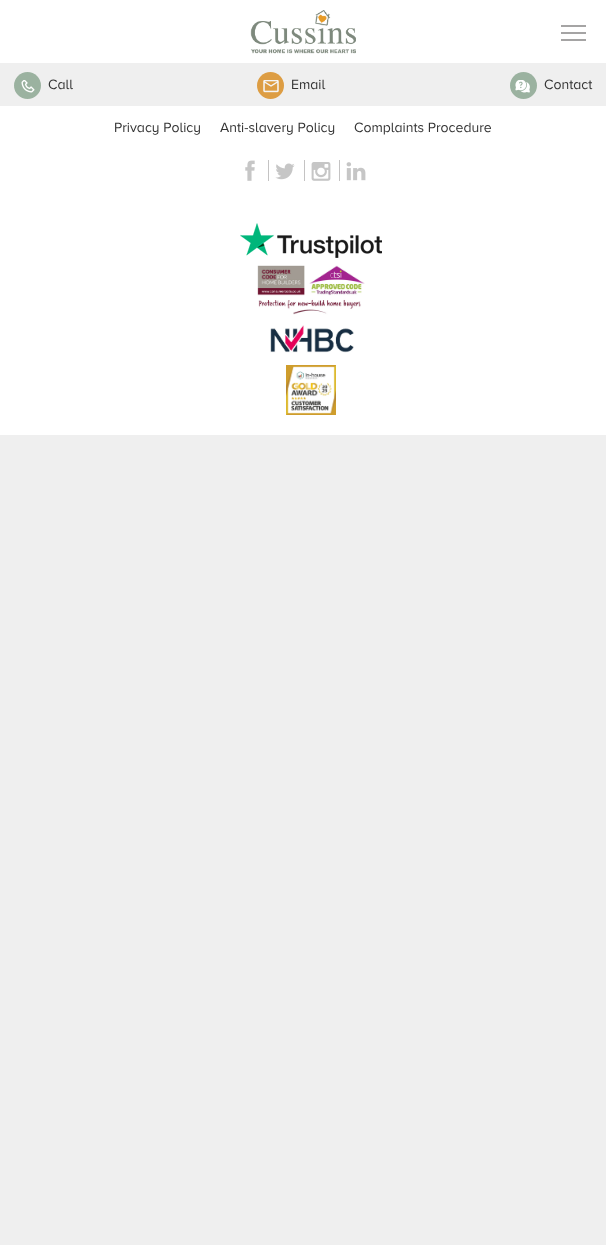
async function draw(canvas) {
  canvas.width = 606;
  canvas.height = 1245;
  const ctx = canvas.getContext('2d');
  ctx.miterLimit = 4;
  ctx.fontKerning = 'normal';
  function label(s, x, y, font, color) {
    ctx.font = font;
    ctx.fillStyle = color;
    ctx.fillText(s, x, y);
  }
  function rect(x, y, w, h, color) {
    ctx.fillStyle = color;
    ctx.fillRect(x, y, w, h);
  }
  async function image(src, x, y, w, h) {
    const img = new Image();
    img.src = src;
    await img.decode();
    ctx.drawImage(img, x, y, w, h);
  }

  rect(0, 0, 606, 1245, '#efefef');
  rect(0, 0, 606, 63, '#fff');
  await image('assets/img1.png', 250, 10, 106, 44);
  rect(561, 25, 25, 2, '#a5a4a4');
  rect(561, 32, 25, 2, '#a5a4a4');
  rect(561, 39, 25, 2, '#a5a4a4');
  ctx.fillStyle = '#9bb2a0';
  ctx.beginPath();
  ctx.arc(27.5, 85.5, 13.5, 0, 2 * Math.PI);
  ctx.fill();
  await image('assets/img2.png', 21, 80, 14, 13);
  label('Call', 48, 89, '14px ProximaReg', '#333');
  ctx.fillStyle = '#dd9d43';
  ctx.beginPath();
  ctx.arc(270.5, 85.5, 13.5, 0, 2 * Math.PI);
  ctx.fill();
  await image('assets/img3.png', 263, 80, 16, 13);
  label('Email', 291, 89, '14px ProximaReg', '#333');
  ctx.fillStyle = '#9bb2a0';
  ctx.beginPath();
  ctx.arc(523.5, 85.5, 13.5, 0, 2 * Math.PI);
  ctx.fill();
  await image('assets/img4.png', 515, 80, 15, 13);
  label('Contact', 544, 89, '14px ProximaReg', '#333');
  rect(0, 106, 606, 329, '#fff');
  label('Privacy Policy', 114, 132, '14px ProximaReg', '#333');
  label('Anti-slavery Policy', 220, 132, '14px ProximaReg', '#333');
  label('Complaints Procedure', 354, 132, '14px ProximaReg', '#333');
  await image('assets/img5.png', 245, 160, 10, 21);
  rect(268, 160, 1, 21, '#c4c3c3');
  await image('assets/img6.png', 275, 163, 20, 17);
  rect(304, 160, 1, 21, '#c4c3c3');
  await image('assets/img7.png', 311, 162, 20, 19);
  rect(339, 160, 1, 21, '#c4c3c3');
  await image('assets/img8.png', 346, 162, 20, 19);
  await image('assets/img9.png', 240, 223, 142, 35);
  await image('assets/img10.png', 257, 265, 108, 50);
  await image('assets/img11.png', 270, 325, 84, 28);
  await image('assets/img12.png', 286, 365, 50, 50);
}

draw(document.querySelector('canvas'));
